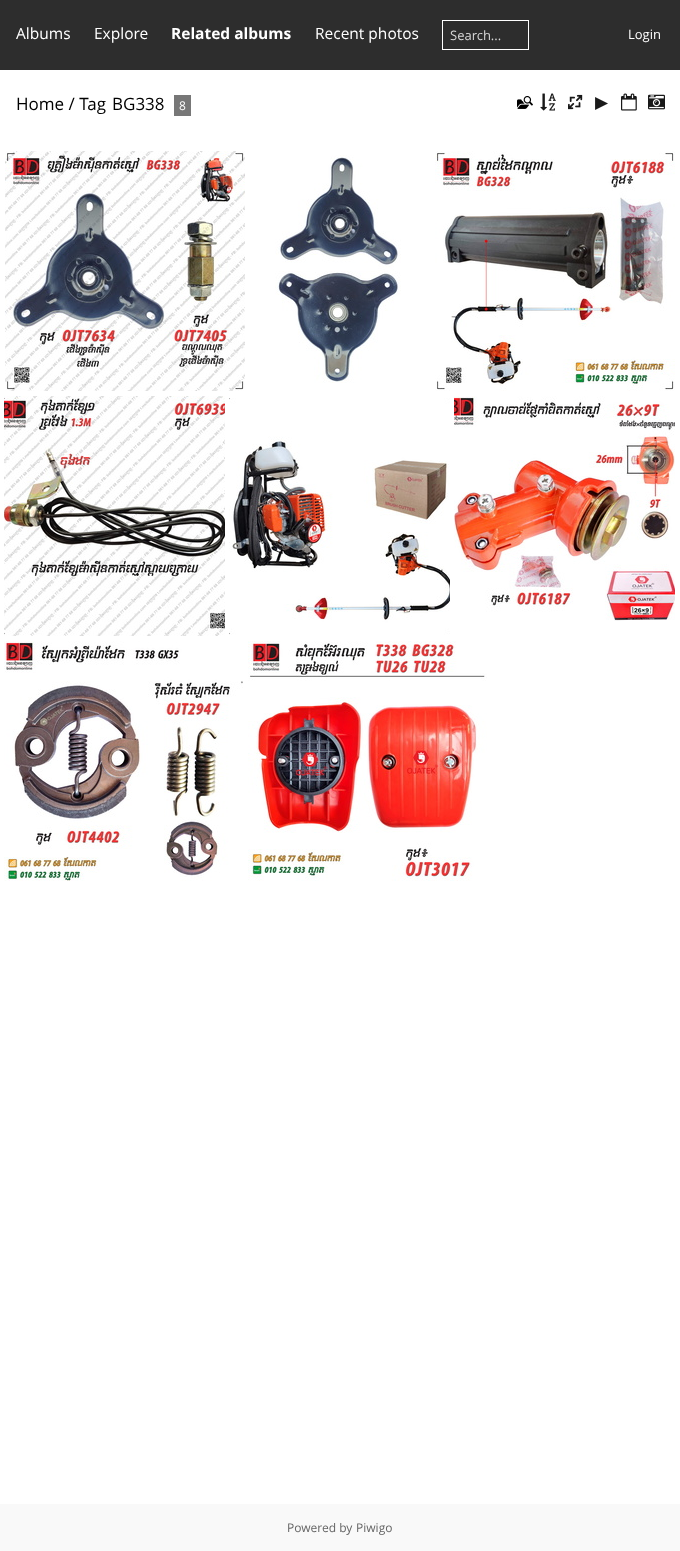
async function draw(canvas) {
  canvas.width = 680;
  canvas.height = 1551;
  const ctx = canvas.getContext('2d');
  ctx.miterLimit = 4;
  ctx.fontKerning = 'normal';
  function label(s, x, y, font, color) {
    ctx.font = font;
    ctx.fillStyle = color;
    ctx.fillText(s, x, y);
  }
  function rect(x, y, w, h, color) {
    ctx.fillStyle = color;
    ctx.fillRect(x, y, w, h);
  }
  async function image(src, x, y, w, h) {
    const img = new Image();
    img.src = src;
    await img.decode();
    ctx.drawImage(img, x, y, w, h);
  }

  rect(0, 0, 680, 1551, '#fff');
  rect(0, 0, 680, 70, '#2d2d2d');
  label('Albums', 16, 39, '15.5px Open Sans', '#fff');
  label('Explore', 94, 39, '15.5px Open Sans', '#fff');
  label('Related albums', 171, 39, 'bold 15.5px Open Sans', '#fff');
  label('Recent photos', 315, 39, '15.5px Open Sans', '#fff');
  ctx.strokeStyle = '#fff';
  ctx.strokeRect(442.5, 20.5, 86, 29);
  label('Search...', 450, 40, '13px Open Sans', '#d6d6d6');
  label('Login', 628, 39, '13px Open Sans', '#fff');
  label('Home / Tag', 16, 110, '17px Open Sans', '#000');
  label('BG338', 112, 110, '17px Open Sans', '#000');
  rect(174, 95, 17, 21, '#777');
  label('8', 179, 110, '12px Open Sans', '#fff');
  await image('assets/img1.png', 517, 96, 16, 13);
  await image('assets/img2.png', 540, 93, 16, 18);
  await image('assets/img3.png', 568, 94, 15, 16);
  label('▶', 595, 108, '17px DejaVu Sans', '#1a1a1a');
  await image('assets/img4.png', 621, 93, 16, 18);
  await image('assets/img5.png', 648, 94, 17, 16);
  await image('assets/img6.png', 5, 151, 240, 240);
  await image('assets/img7.png', 275, 155, 126, 228);
  await image('assets/img8.png', 435, 151, 240, 240);
  await image('assets/img9.png', 4, 396, 221, 240);
  await image('assets/img10.png', 229, 398, 221, 237);
  await image('assets/img11.png', 454, 396, 221, 225);
  await image('assets/img12.png', 4, 641, 239, 240);
  await image('assets/img13.png', 248, 641, 239, 240);
  rect(0, 1504, 680, 47, '#f9f9f9');
  label('Powered by', 287, 1532, '12px Open Sans', '#666');
  label('Piwigo', 356, 1532, '12px Open Sans', '#666');
}

draw(document.querySelector('canvas'));
